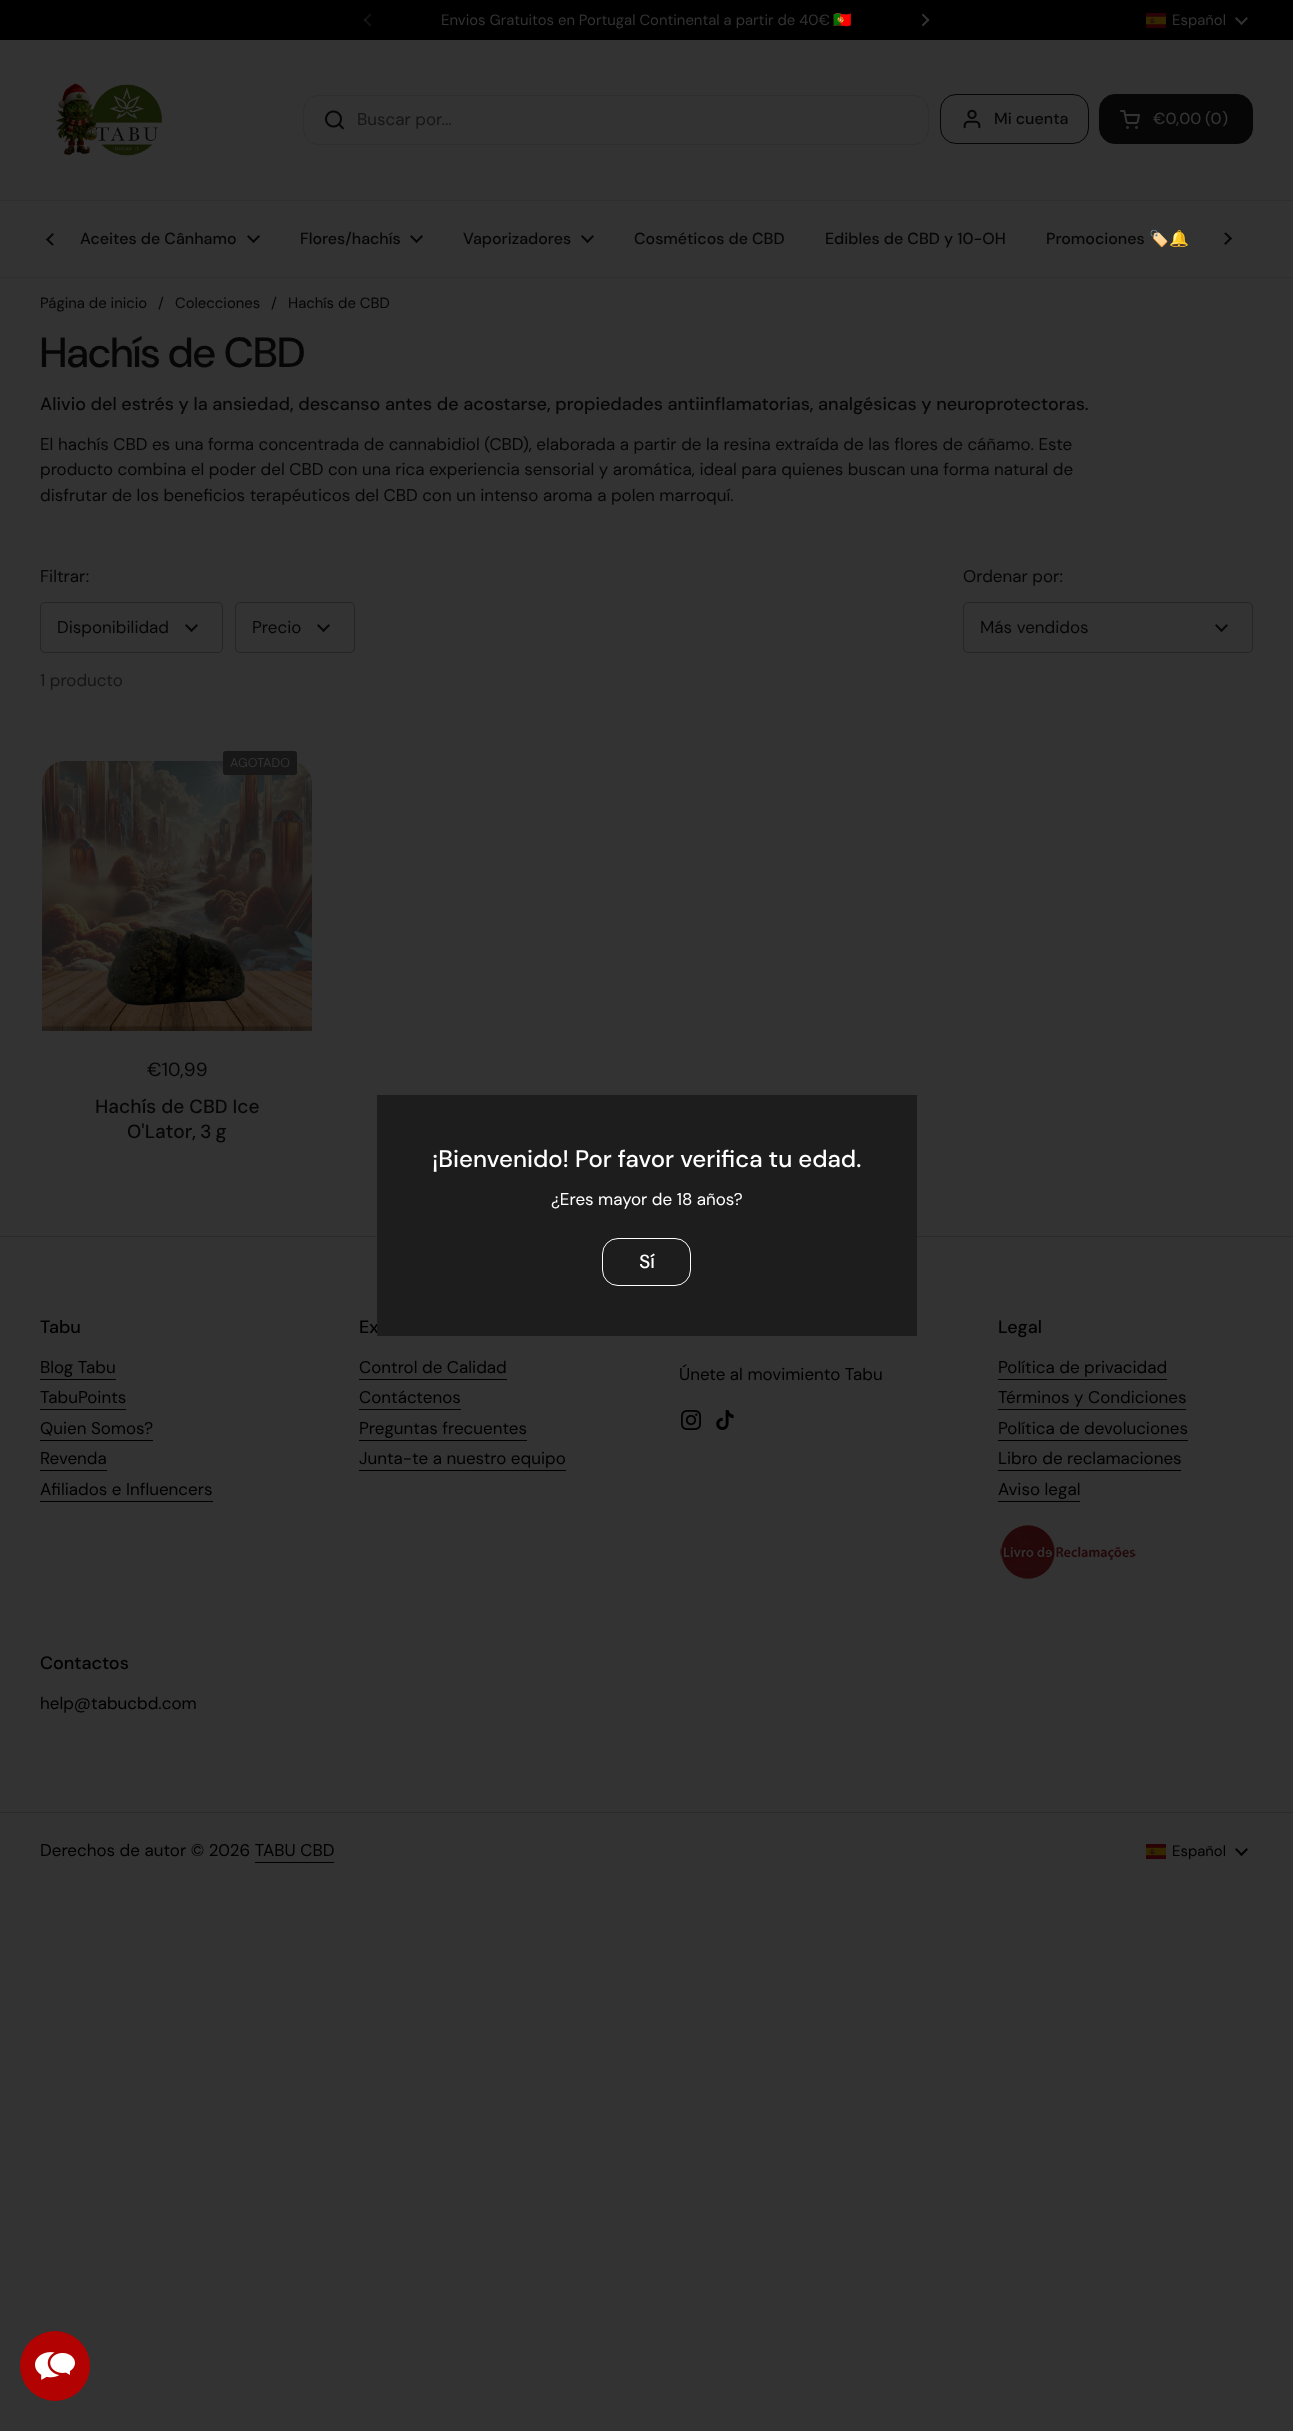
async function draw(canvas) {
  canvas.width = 1293;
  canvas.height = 2431;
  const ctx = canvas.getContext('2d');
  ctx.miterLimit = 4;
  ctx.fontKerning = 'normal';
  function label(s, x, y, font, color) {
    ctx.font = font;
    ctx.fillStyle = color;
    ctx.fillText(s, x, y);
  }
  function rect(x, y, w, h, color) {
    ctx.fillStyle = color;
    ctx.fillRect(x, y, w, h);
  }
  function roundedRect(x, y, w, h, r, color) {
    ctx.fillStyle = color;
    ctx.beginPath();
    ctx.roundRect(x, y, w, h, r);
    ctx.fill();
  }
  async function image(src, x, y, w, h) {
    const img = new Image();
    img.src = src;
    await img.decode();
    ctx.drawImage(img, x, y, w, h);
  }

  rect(0, 0, 1293, 2431, '#333');
  rect(0, 0, 1293, 40, '#000');
  await image('assets/img1.png', 363, 13, 8, 14);
  label('Envios Gratuitos en Portugal Continental a partir de 40€', 441, 25, '14.9px DM Sans', '#333');
  label('🇵🇹', 833, 25, '14.9px Noto Color Emoji', '#333');
  await image('assets/img2.png', 921, 13, 9, 14);
  await image('assets/img3.png', 1146, 13, 20, 15);
  label('Español', 1172, 25, '14.9px DM Sans', '#333');
  await image('assets/img4.png', 1235, 17, 13, 8);
  rect(0, 200, 1293, 1, '#2e2e2e');
  await image('assets/img5.png', 56, 83, 106, 73);
  ctx.beginPath();
  ctx.roundRect(303.5, 95.5, 625, 49, 15.5);
  ctx.strokeStyle = '#2e2e2e';
  ctx.stroke();
  await image('assets/img6.png', 325, 110, 19, 20);
  label('Buscar por...', 357, 125, '17px "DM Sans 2"', '#151515');
  ctx.beginPath();
  ctx.roundRect(940.5, 94.5, 148, 49, 15.5);
  ctx.strokeStyle = '#060606';
  ctx.stroke();
  await image('assets/img7.png', 963, 109, 18, 20);
  label('Mi cuenta', 994, 124, '500 16px "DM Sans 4"', '#060606');
  ctx.beginPath();
  ctx.roundRect(1099.5, 94.5, 153, 49, 15.5);
  ctx.fill();
  ctx.stroke();
  await image('assets/img8.png', 1120, 110, 20, 19);
  label('€0,00', 1153, 124, '500 16px "DM Sans 4"', '#333');
  label('(0', 1205, 124, '500 16px "DM Sans 4"', '#333');
  label(')', 1222, 124, '500 16px "DM Sans 4"', '#333');
  rect(0, 277, 1293, 1, '#2e2e2e');
  await image('assets/img9.png', 46, 233, 8, 13);
  label('Aceites de Cânhamo', 80, 244, '500 16px "DM Sans 4"', '#060606');
  await image('assets/img10.png', 247, 235, 13, 8);
  label('Flores/hachís', 300, 244, '500 16px "DM Sans 4"', '#060606');
  await image('assets/img10.png', 410, 235, 13, 8);
  label('Vaporizadores', 463, 244, '500 16px "DM Sans 4"', '#060606');
  await image('assets/img10.png', 581, 235, 13, 8);
  label('Cosméticos de CBD', 634, 244, '500 16px "DM Sans 4"', '#060606');
  label('Edibles de CBD y 10-OH', 825, 244, '500 16px "DM Sans 4"', '#060606');
  label('Promociones', 1046, 244, '500 16px "DM Sans 4"', '#060606');
  label('🏷️🔔', 1149, 244, '16px Noto Color Emoji', '#060606');
  await image('assets/img11.png', 1224, 232, 8, 13);
  label('Página de inicio', 40, 308, '14.9px DM Sans', '#060606');
  label('/', 158, 308, '14.9px DM Sans', '#060606');
  label('Colecciones', 175, 308, '14.9px DM Sans', '#060606');
  label('/', 271, 308, '14.9px DM Sans', '#060606');
  label('Hachís de CBD', 288, 308, '14.9px DM Sans', '#060606');
  label('Hachís de CBD', 40, 367, '500 42px DM Sans', '#060606');
  label('Alivio del estrés y la ansiedad, descanso antes de acostarse, propiedades antiinflamatorias, analgésicas y neuroprotectoras.', 40, 410, '500 18px "DM Sans 2"', '#060606');
  label('El hachís CBD es una forma concentrada de cannabidiol (CBD), elaborada a partir de la resina extraída de las flores de cáñamo. Este', 40, 450, '17px "DM Sans 2"', '#060606');
  label('producto combina el poder del CBD con una rica experiencia sensorial y aromática, ideal para quienes buscan una forma natural de', 40, 475, '17px "DM Sans 2"', '#060606');
  label('disfrutar de los beneficios terapéuticos del CBD con un intenso aroma a polen marroquí.', 40, 501, '17px "DM Sans 2"', '#060606');
  label('Filtrar:', 40, 582, '17px "DM Sans 2"', '#060606');
  await image('assets/img10.png', 185, 624, 13, 8);
  ctx.beginPath();
  ctx.roundRect(40.5, 602.5, 182, 50, 4.5);
  ctx.strokeStyle = '#252525';
  ctx.stroke();
  label('Disponibilidad', 57, 633, '17px "DM Sans 2"', '#060606');
  await image('assets/img10.png', 317, 624, 13, 8);
  ctx.beginPath();
  ctx.roundRect(235.5, 602.5, 119, 50, 4.5);
  ctx.stroke();
  label('Precio', 252, 633, '17px "DM Sans 2"', '#060606');
  label('Ordenar por:', 963, 582, '17px "DM Sans 2"', '#060606');
  await image('assets/img10.png', 1215, 624, 13, 8);
  ctx.beginPath();
  ctx.roundRect(963.5, 602.5, 289, 50, 4.5);
  ctx.stroke();
  label('Más vendidos', 980, 633, '17px "DM Sans 2"', '#060606');
  label('1 producto', 40, 686, '17px "DM Sans 2"', '#151515');
  await image('assets/img12.png', 42, 761, 270, 270);
  roundedRect(223, 751, 74, 24, 3, '#171717');
  label('AGOTADO', 230, 767, '12.75px "DM Sans 4"', '#333');
  label('€10,99', 147, 1076, '19.1px "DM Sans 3"', '#060606');
  label('Hachís de CBD Ice', 95, 1113, '500 19.1px "DM Sans 3"', '#060606');
  ctx.wordSpacing = '-1px';
  label('O\'Lator, 3 g', 127, 1138, '500 19.1px "DM Sans 3"', '#060606');
  rect(0, 1236, 1293, 1, '#2b2b2b');
  ctx.wordSpacing = '0px';
  label('Ex', 359, 1333, '500 18px "DM Sans 2"', '#000');
  rect(377, 1095, 540, 241, '#1d1d1d');
  label('¡Bienvenido! Por favor verifica tu edad.', 432, 1167, '500 24px "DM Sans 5"', '#fff');
  label('¿Eres mayor de 18 años?', 551, 1205, '17px "DM Sans 2"', '#fff');
  ctx.beginPath();
  ctx.roundRect(602.5, 1238.5, 88, 47, 15.5);
  ctx.strokeStyle = '#fff';
  ctx.stroke();
  label('Sí', 639, 1268, '500 19.1px "DM Sans 3"', '#fff');
  label('Tabu', 40, 1333, '500 18px "DM Sans 2"', '#000');
  label('Blog Tabu', 40, 1373, '17px "DM Sans 2"', '#000');
  rect(40, 1379, 76, 1, '#000');
  label('TabuPoints', 40, 1403, '17px "DM Sans 2"', '#000');
  rect(40, 1409, 86, 1, '#000');
  label('Quien Somos?', 40, 1434, '17px "DM Sans 2"', '#000');
  rect(40, 1440, 113, 1, '#000');
  label('Revenda', 40, 1464, '17px "DM Sans 2"', '#000');
  rect(40, 1470, 67, 1, '#000');
  label('Afiliados e Influencers', 40, 1495, '17px "DM Sans 2"', '#000');
  rect(40, 1501, 173, 1, '#000');
  label('Control de Calidad', 359, 1373, '17px "DM Sans 2"', '#000');
  rect(359, 1379, 148, 1, '#000');
  label('Contáctenos', 359, 1403, '17px "DM Sans 2"', '#000');
  rect(359, 1409, 102, 1, '#000');
  label('Preguntas frecuentes', 359, 1434, '17px "DM Sans 2"', '#000');
  rect(359, 1440, 168, 1, '#000');
  label('Junta-te a nuestro equipo', 359, 1464, '17px "DM Sans 2"', '#000');
  rect(359, 1470, 207, 1, '#000');
  label('Únete al movimiento Tabu', 679, 1380, '17px "DM Sans 2"', '#000');
  await image('assets/img13.png', 681, 1410, 20, 20);
  await image('assets/img14.png', 716, 1410, 18, 20);
  label('Legal', 998, 1333, '500 18px "DM Sans 2"', '#000');
  label('Política de privacidad', 998, 1373, '17px "DM Sans 2"', '#000');
  rect(998, 1379, 169, 1, '#000');
  label('Términos y Condiciones', 998, 1403, '17px "DM Sans 2"', '#000');
  rect(998, 1409, 188, 1, '#000');
  label('Política de devoluciones', 998, 1434, '17px "DM Sans 2"', '#000');
  rect(998, 1440, 190, 1, '#000');
  label('Libro de reclamaciones', 998, 1464, '17px "DM Sans 2"', '#000');
  rect(998, 1470, 183, 1, '#000');
  label('Aviso legal', 998, 1495, '17px "DM Sans 2"', '#000');
  rect(998, 1501, 82, 1, '#000');
  await image('assets/img15.png', 1000, 1525, 136, 54);
  label('Contactos', 40, 1669, '500 18px "DM Sans 2"', '#000');
  label('help@tabucbd.com', 40, 1709, '17px "DM Sans 2"', '#000');
  rect(0, 1812, 1293, 1, '#2b2b2b');
  label('Derechos de autor © 2026 TABU CBD', 40, 1856, '17px "DM Sans 2"', '#000');
  rect(255, 1862, 79, 1, '#000');
  await image('assets/img3.png', 1146, 1844, 20, 15);
  label('Español', 1172, 1856, '14.9px DM Sans', '#000');
  await image('assets/img16.png', 1235, 1848, 13, 8);
  ctx.fillStyle = '#b20202';
  ctx.beginPath();
  ctx.arc(55, 2366, 35, 0, 2 * Math.PI);
  ctx.fill();
  await image('assets/img17.png', 35, 2352, 40, 28);
}

draw(document.querySelector('canvas'));
